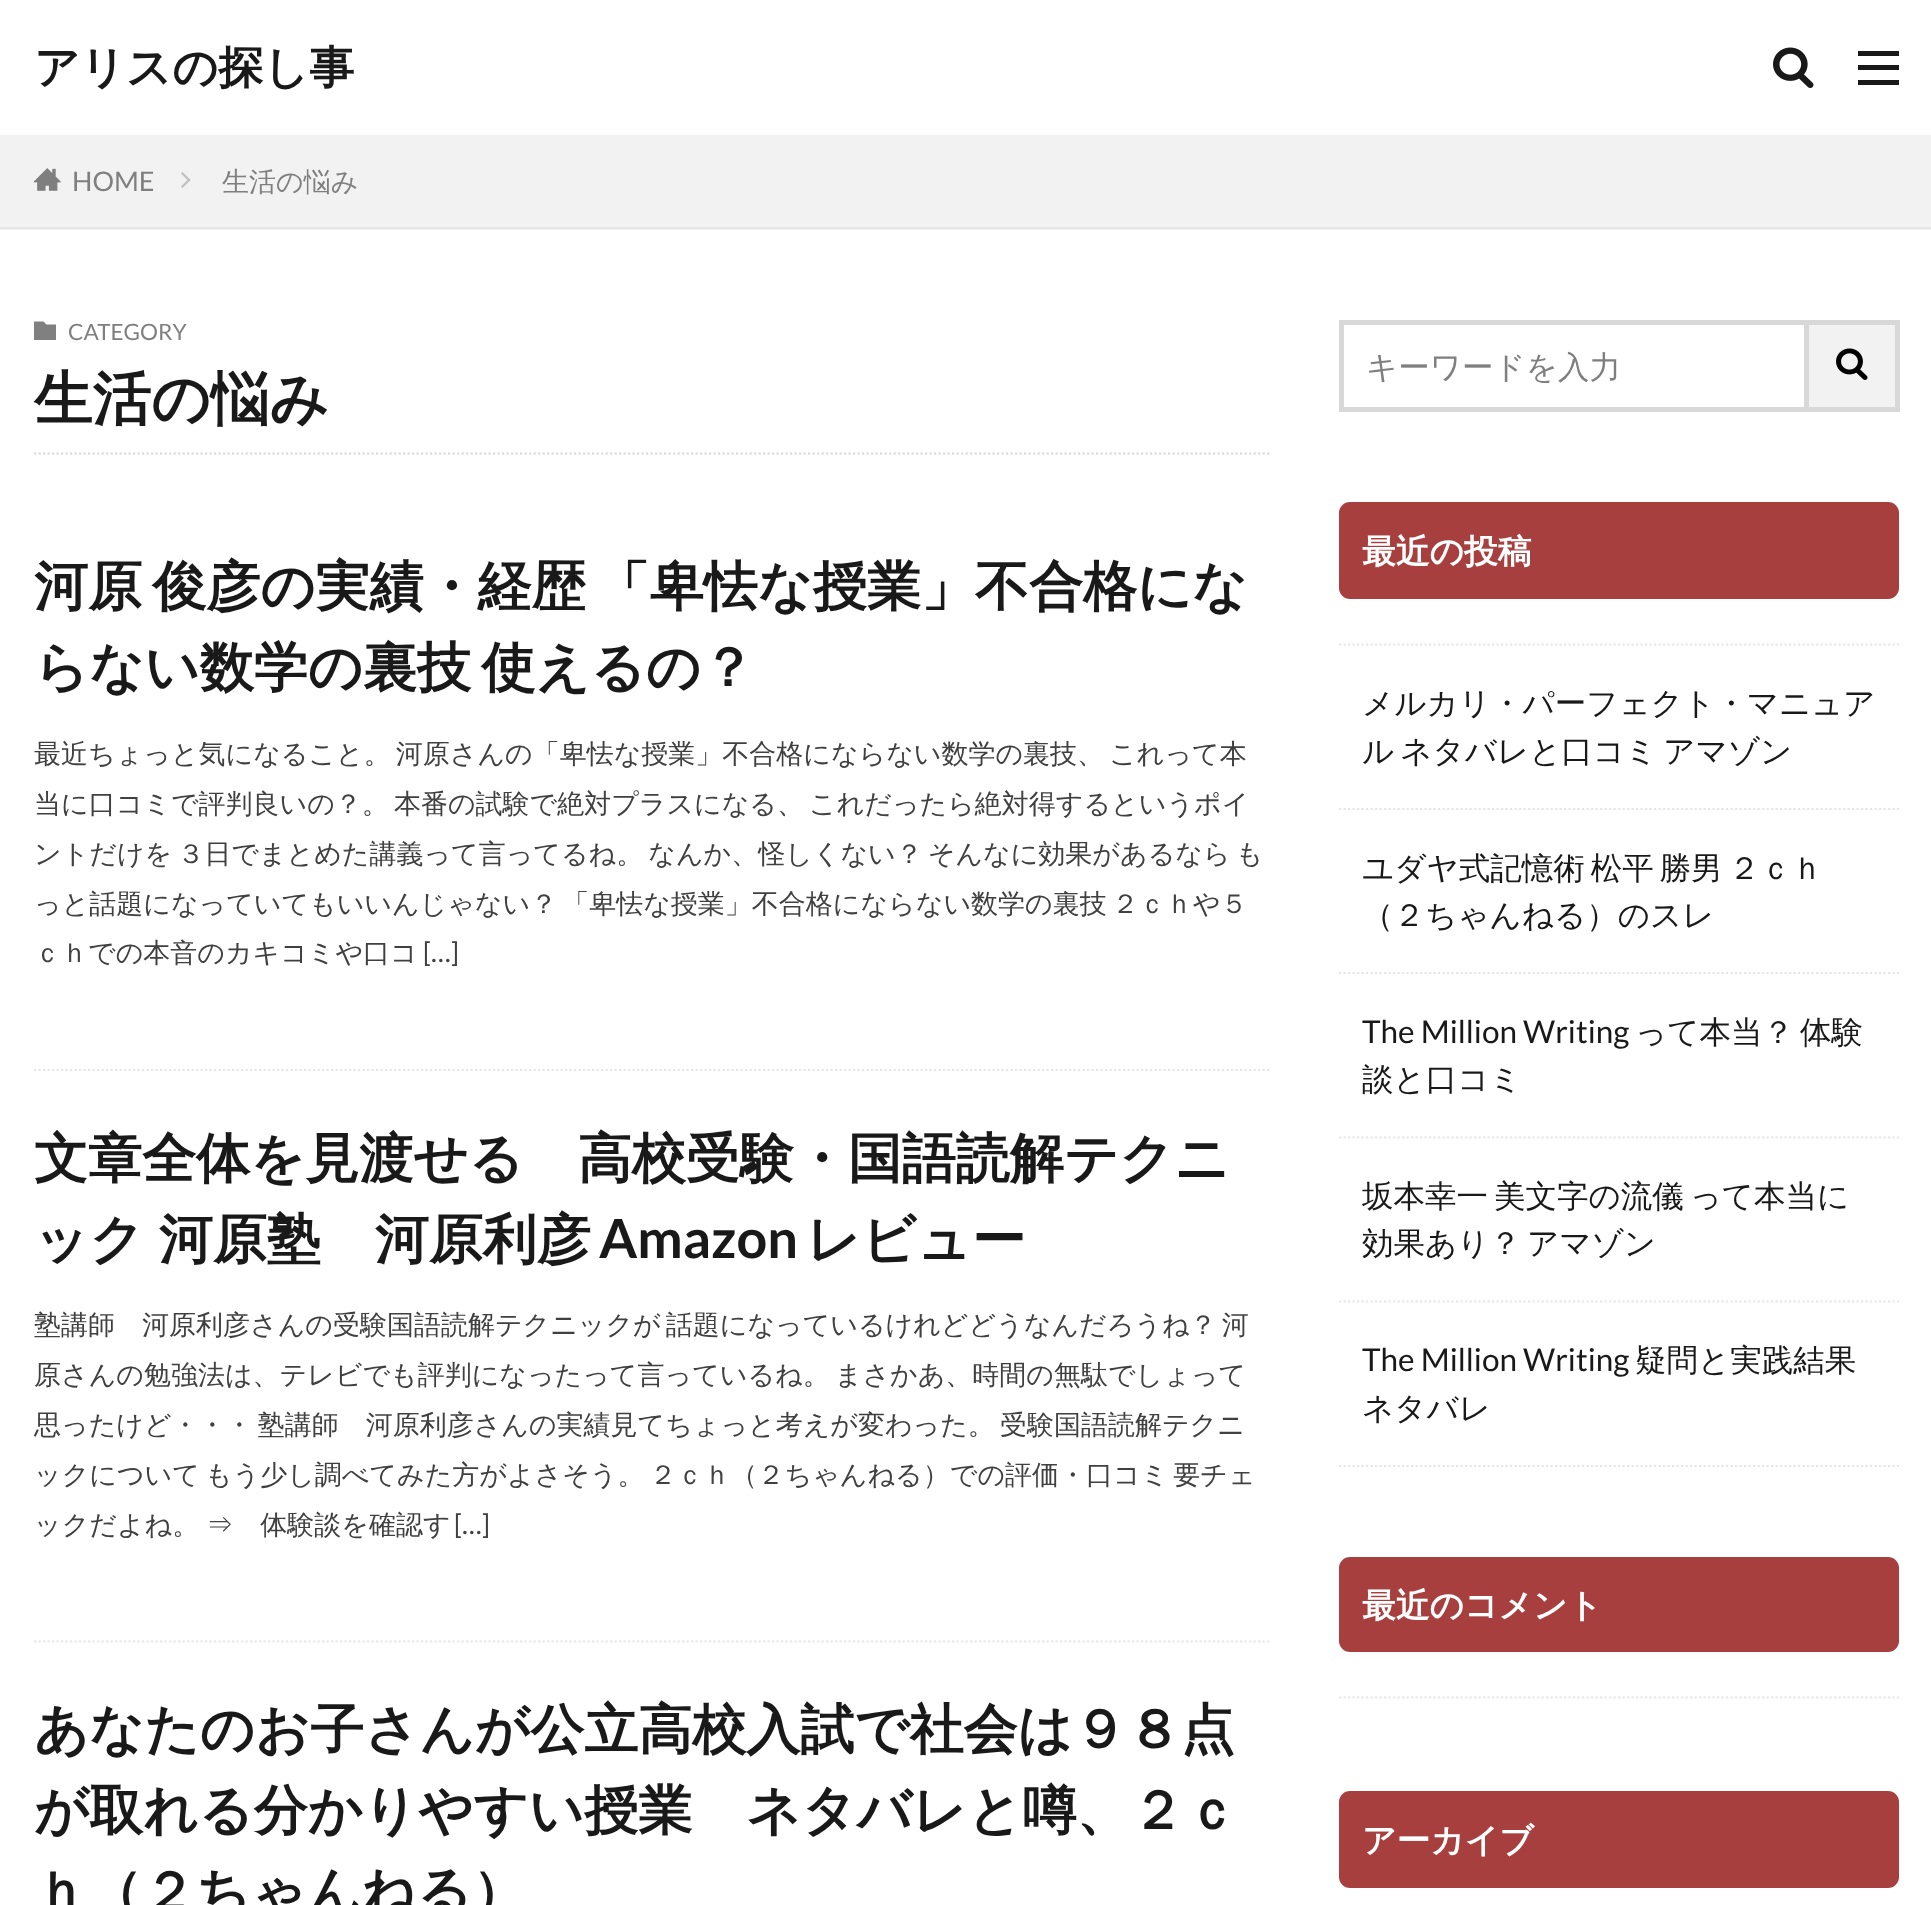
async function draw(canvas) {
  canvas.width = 1931;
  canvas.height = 1905;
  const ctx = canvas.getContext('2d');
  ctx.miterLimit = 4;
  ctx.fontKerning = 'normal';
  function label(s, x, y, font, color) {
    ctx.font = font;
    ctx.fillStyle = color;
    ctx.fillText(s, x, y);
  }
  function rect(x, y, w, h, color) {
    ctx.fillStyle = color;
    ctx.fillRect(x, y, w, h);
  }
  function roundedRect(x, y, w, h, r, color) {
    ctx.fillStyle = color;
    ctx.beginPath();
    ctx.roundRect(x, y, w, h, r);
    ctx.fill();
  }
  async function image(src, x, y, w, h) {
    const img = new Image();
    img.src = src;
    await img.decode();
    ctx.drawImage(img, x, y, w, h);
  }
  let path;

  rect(0, 0, 1931, 1905, '#fff');
  label('アリスの探し事', 34, 83, 'bold 45px WenQuanYi Zen Hei', '#191919');
  await image('assets/img1.png', 1773, 47, 41, 41);
  path = new Path2D('M1858 51H1899V56H1858ZM1858 65H1899V70H1858ZM1858 80H1899V85H1858Z');
  ctx.fill(path);
  rect(0, 135, 1931, 95, '#f2f2f2');
  rect(0, 227, 1931, 2, '#e6e6e6');
  await image('assets/img2.png', 33, 168, 28, 23);
  label('HOME', 72, 191, '27px Lato', '#7f7f7f');
  ctx.fillStyle = '#bfbfbf';
  path = new Path2D('M182.5 172L190.5 180L189 181.5L181 173.5Z');
  ctx.fill(path);
  path = new Path2D('M189 178.5L190.5 180L182.5 188L181 186.5Z');
  ctx.fill(path);
  label('生活の悩み', 222, 191, '500 27px WenQuanYi Zen Hei', '#7f7f7f');
  ctx.fillStyle = '#808080';
  path = new Path2D('M43.5 321.5L46.5 324.5H56V340H34V321.5Z');
  ctx.fill(path);
  label('CATEGORY', 68, 340, '22.5px Lato', '#7f7f7f');
  path = new Path2D('M34 453.5H1271');
  ctx.strokeStyle = '#d8d8d8';
  ctx.lineWidth = 2.2;
  ctx.setLineDash([2.25, 2.25]);
  ctx.stroke(path);
  label('生活の悩み', 34, 419, 'bold 58.5px WenQuanYi Zen Hei', '#191919');
  path = new Path2D('M34 1070H1271');
  ctx.strokeStyle = '#e6e6e6';
  ctx.stroke(path);
  ctx.wordSpacing = '-6px';
  label('河原 俊彦の実績・経歴 「卑怯な授業」不合格にな', 34, 605, 'bold 54px WenQuanYi Zen Hei', '#191919');
  label('らない数学の裏技 使えるの？', 34, 686, 'bold 54px WenQuanYi Zen Hei', '#191919');
  ctx.wordSpacing = '-3px';
  label('最近ちょっと気になること。 河原さんの「卑怯な授業」不合格にならない数学の裏技、 これって本', 34, 763, '500 27px WenQuanYi Zen Hei', '#404040');
  label('当に口コミで評判良いの？。 本番の試験で絶対プラスになる、 これだったら絶対得するというポイ', 34, 813, '500 27px WenQuanYi Zen Hei', '#404040');
  label('ントだけを ３日でまとめた講義って言ってるね。 なんか、怪しくない？ そんなに効果があるなら も', 34, 863, '500 27px WenQuanYi Zen Hei', '#404040');
  label('っと話題になっていてもいいんじゃない？ 「卑怯な授業」不合格にならない数学の裏技 ２ｃｈや５', 34, 913, '500 27px WenQuanYi Zen Hei', '#404040');
  ctx.wordSpacing = '0px';
  label('ｃｈでの本音のカキコミや口コ', 34, 962, '500 27px WenQuanYi Zen Hei', '#404040');
  label('[…]', 423, 962, '27px Lato', '#404040');
  path = new Path2D('M34 1641.5H1271');
  ctx.stroke(path);
  label('文章全体を見渡せる　高校受験・国語読解テクニ', 34, 1177, 'bold 54px WenQuanYi Zen Hei', '#191919');
  ctx.wordSpacing = '-2px';
  label('ック 河原塾　河原利彦', 34, 1258, 'bold 54px WenQuanYi Zen Hei', '#191919');
  ctx.wordSpacing = '0px';
  label('Amazon', 599, 1258, 'bold 54px Lato', '#191919');
  label('レビュー', 806, 1258, 'bold 54px WenQuanYi Zen Hei', '#191919');
  ctx.wordSpacing = '-3px';
  label('塾講師　河原利彦さんの受験国語読解テクニックが 話題になっているけれどどうなんだろうね？ 河', 34, 1334, '500 27px WenQuanYi Zen Hei', '#404040');
  label('原さんの勉強法は、テレビでも評判になったって言っているね。 まさかあ、時間の無駄でしょって', 34, 1384, '500 27px WenQuanYi Zen Hei', '#404040');
  label('思ったけど・・・ 塾講師　河原利彦さんの実績見てちょっと考えが変わった。 受験国語読解テクニ', 34, 1434, '500 27px WenQuanYi Zen Hei', '#404040');
  label('ックについて もう少し調べてみた方がよさそう。 ２ｃｈ（２ちゃんねる）での評価・口コミ 要チェ', 34, 1484, '500 27px WenQuanYi Zen Hei', '#404040');
  ctx.wordSpacing = '-1px';
  label('ックだよね。 ⇒　体験談を確認す', 34, 1534, '500 27px WenQuanYi Zen Hei', '#404040');
  ctx.wordSpacing = '0px';
  label('[…]', 454, 1534, '27px Lato', '#404040');
  label('あなたのお子さんが公立高校入試で社会は９８点', 34, 1748, 'bold 54px WenQuanYi Zen Hei', '#191919');
  label('が取れる分かりやすい授業　ネタバレと噂、２ｃ', 34, 1829, 'bold 54px WenQuanYi Zen Hei', '#191919');
  label('ｈ（２ちゃんねる）', 34, 1910, 'bold 54px WenQuanYi Zen Hei', '#191919');
  ctx.strokeStyle = '#d8d8d8';
  ctx.lineWidth = 5;
  ctx.setLineDash([]);
  ctx.strokeRect(1341.5, 322.5, 465, 87);
  label('キーワードを入力', 1366, 378, '500 31.5px WenQuanYi Zen Hei', '#7f7f7f');
  rect(1809, 325, 86, 82, '#f2f2f2');
  rect(1809, 320, 90, 5, '#d8d8d8');
  rect(1895, 320, 5, 92, '#d8d8d8');
  rect(1809, 407, 90, 5, '#d8d8d8');
  await image('assets/img3.png', 1836, 348, 32, 32);
  roundedRect(1339, 502, 560, 97, 11, '#a83f3f');
  label('最近の投稿', 1362, 563, 'bold 33.75px WenQuanYi Zen Hei', '#fff');
  path = new Path2D('M1339 644.5H1899');
  ctx.strokeStyle = '#e6e6e6';
  ctx.lineWidth = 2.2;
  ctx.setLineDash([2.25, 2.25]);
  ctx.stroke(path);
  path = new Path2D('M1339 809H1899');
  ctx.stroke(path);
  label('メルカリ・パーフェクト・マニュア', 1362, 714, '500 31.5px WenQuanYi Zen Hei', '#191919');
  ctx.wordSpacing = '-3.5px';
  label('ル ネタバレと口コミ アマゾン', 1362, 762, '500 31.5px WenQuanYi Zen Hei', '#191919');
  path = new Path2D('M1339 973H1899');
  ctx.stroke(path);
  label('ユダヤ式記憶術 松平 勝男 ２ｃｈ', 1362, 879, '500 31.5px WenQuanYi Zen Hei', '#191919');
  ctx.wordSpacing = '0px';
  label('（２ちゃんねる）のスレ', 1362, 926, '500 31.5px WenQuanYi Zen Hei', '#191919');
  path = new Path2D('M1339 1137.5H1899');
  ctx.stroke(path);
  label('The Million Writing', 1362, 1043, '31.5px Lato', '#191919');
  label('って本当？', 1635, 1043, '500 31.5px WenQuanYi Zen Hei', '#191919');
  label('体験', 1800, 1043, '500 31.5px WenQuanYi Zen Hei', '#191919');
  label('談と口コミ', 1362, 1090, '500 31.5px WenQuanYi Zen Hei', '#191919');
  path = new Path2D('M1339 1301.5H1899');
  ctx.stroke(path);
  ctx.wordSpacing = '-3.5px';
  label('坂本幸一 美文字の流儀 って本当に', 1362, 1207, '500 31.5px WenQuanYi Zen Hei', '#191919');
  label('効果あり？ アマゾン', 1362, 1254, '500 31.5px WenQuanYi Zen Hei', '#191919');
  path = new Path2D('M1339 1466H1899');
  ctx.stroke(path);
  ctx.wordSpacing = '0px';
  label('The Million Writing', 1362, 1371, '31.5px Lato', '#191919');
  label('疑問と実践結果', 1635, 1371, '500 31.5px WenQuanYi Zen Hei', '#191919');
  label('ネタバレ', 1362, 1419, '500 31.5px WenQuanYi Zen Hei', '#191919');
  roundedRect(1339, 1557, 560, 95, 11, '#a83f3f');
  label('最近のコメント', 1362, 1617, 'bold 33.75px WenQuanYi Zen Hei', '#fff');
  path = new Path2D('M1339 1697.5H1899');
  ctx.stroke(path);
  roundedRect(1339, 1791, 560, 97, 11, '#a83f3f');
  label('アーカイブ', 1362, 1852, 'bold 33.75px WenQuanYi Zen Hei', '#fff');
}

draw(document.querySelector('canvas'));
